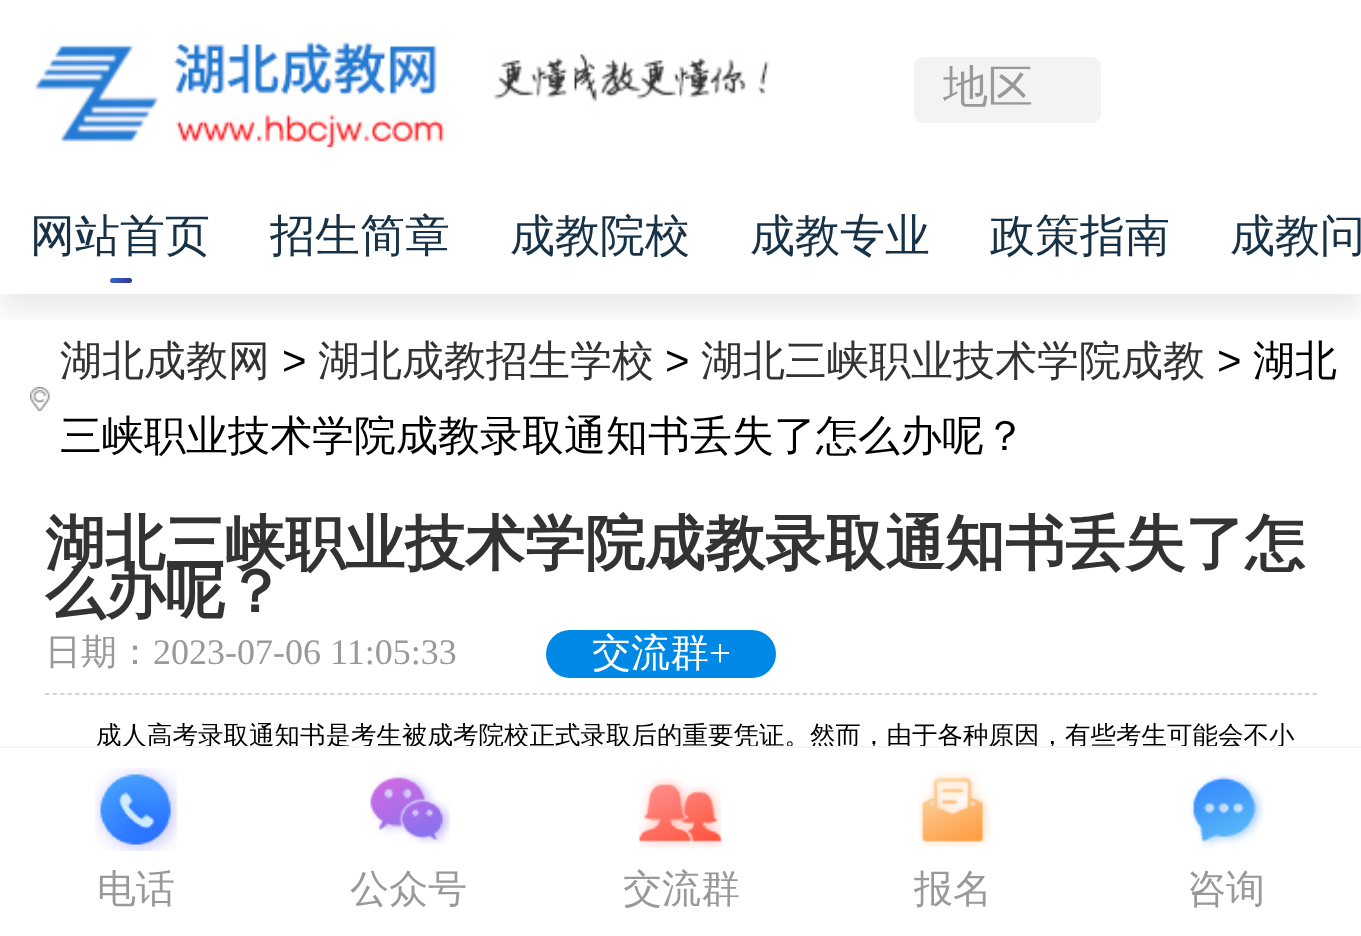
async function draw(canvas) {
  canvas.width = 1361;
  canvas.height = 936;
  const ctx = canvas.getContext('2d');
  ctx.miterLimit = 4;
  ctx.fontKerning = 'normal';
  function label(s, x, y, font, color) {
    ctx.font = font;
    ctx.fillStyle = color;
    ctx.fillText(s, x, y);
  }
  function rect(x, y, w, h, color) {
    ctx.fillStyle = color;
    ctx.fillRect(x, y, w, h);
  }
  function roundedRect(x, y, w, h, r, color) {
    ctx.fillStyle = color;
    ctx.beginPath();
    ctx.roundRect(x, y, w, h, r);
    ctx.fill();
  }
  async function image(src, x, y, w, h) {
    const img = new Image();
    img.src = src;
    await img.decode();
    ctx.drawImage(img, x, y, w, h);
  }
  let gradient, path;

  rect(0, 0, 1361, 936, '#fff');
  await image('assets/img1.png', 35, 35, 734, 112);
  roundedRect(914, 57, 187, 66, 9, '#f3f3f3');
  label('地区', 943, 102, '500 45px WenQuanYi Zen Hei', '#999');
  ctx.save();
  ctx.beginPath();
  ctx.rect(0, 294, 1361, 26);
  ctx.clip();
  ctx.fillStyle = '#00000014';
  ctx.filter = 'blur(12px)';
  ctx.beginPath();
  ctx.rect(0, 198, 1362, 114);
  ctx.fill();
  ctx.filter = 'none';
  ctx.restore();
  label('网站首页', 30, 251, '500 45px WenQuanYi Zen Hei', '#173146');
  gradient = ctx.createLinearGradient(131, 280, 109, 280);
  gradient.addColorStop(0, '#313a97');
  gradient.addColorStop(1, '#3865d0');
  ctx.fillStyle = gradient;
  ctx.beginPath();
  ctx.roundRect(110, 278, 22, 5, 2.5);
  ctx.fill();
  label('招生简章', 270, 251, '500 45px WenQuanYi Zen Hei', '#173146');
  label('成教院校', 510, 251, '500 45px WenQuanYi Zen Hei', '#173146');
  label('成教专业', 750, 251, '500 45px WenQuanYi Zen Hei', '#173146');
  label('政策指南', 990, 251, '500 45px WenQuanYi Zen Hei', '#173146');
  label('成教问', 1230, 251, '500 45px WenQuanYi Zen Hei', '#173146');
  await image('assets/img2.png', 30, 387, 20, 24);
  label('湖北成教网', 60, 375, '500 42px WenQuanYi Zen Hei', '#333');
  label('>', 282, 375, '42px Liberation Sans', '#000');
  label('湖北成教招生学校', 318, 375, '500 42px WenQuanYi Zen Hei', '#333');
  label('>', 665, 375, '42px Liberation Sans', '#000');
  label('湖北三峡职业技术学院成教', 701, 375, '500 42px WenQuanYi Zen Hei', '#333');
  label('>', 1217, 375, '42px Liberation Sans', '#000');
  label('湖北', 1253, 375, '500 42px WenQuanYi Zen Hei', '#000');
  label('三峡职业技术学院成教录取通知书丢失了怎么办呢？', 60, 450, '500 42px WenQuanYi Zen Hei', '#000');
  label('湖北三峡职业技术学院成教录取通知书丢失了怎', 45, 564, 'bold 60px WenQuanYi Zen Hei', '#333');
  label('么办呢？', 45, 612, 'bold 60px WenQuanYi Zen Hei', '#333');
  path = new Path2D('M45 694H1317');
  ctx.strokeStyle = '#c7c7c7';
  ctx.lineWidth = 1.5;
  ctx.setLineDash([4.5, 3]);
  ctx.stroke(path);
  label('日期：', 45, 664, '500 36px WenQuanYi Zen Hei', '#999');
  label('2023-07-06 11:05:33', 153, 664, '36px Liberation Serif', '#999');
  roundedRect(546, 630, 230, 48, 24, '#0088e6');
  label('交流群', 592, 666, '500 39px WenQuanYi Zen Hei', '#fff');
  label('+', 709, 666, '39px Liberation Serif', '#fff');
  label('成人高考录取通知书是考生被成考院校正式录取后的重要凭证。然而，由于各种原因，有些考生可能会不小', 96, 744, '500 25.5px WenQuanYi Zen Hei', '#000');
  rect(813, 748, 20, 1, '#fff');
  rect(0, 746, 1361, 2, '#f5f5f5');
  await image('assets/img3.png', 95, 767, 83, 84);
  label('电话', 97, 902, '500 39px WenQuanYi Zen Hei', '#999');
  await image('assets/img4.png', 370, 773, 81, 72);
  label('公众号', 350, 902, '500 39px WenQuanYi Zen Hei', '#999');
  await image('assets/img5.png', 638, 777, 84, 73);
  label('交流群', 623, 902, '500 39px WenQuanYi Zen Hei', '#999');
  await image('assets/img6.png', 918, 772, 73, 76);
  label('报名', 914, 902, '500 39px WenQuanYi Zen Hei', '#999');
  await image('assets/img7.png', 1190, 774, 75, 74);
  label('咨询', 1187, 902, '500 39px WenQuanYi Zen Hei', '#999');
}

draw(document.querySelector('canvas'));
